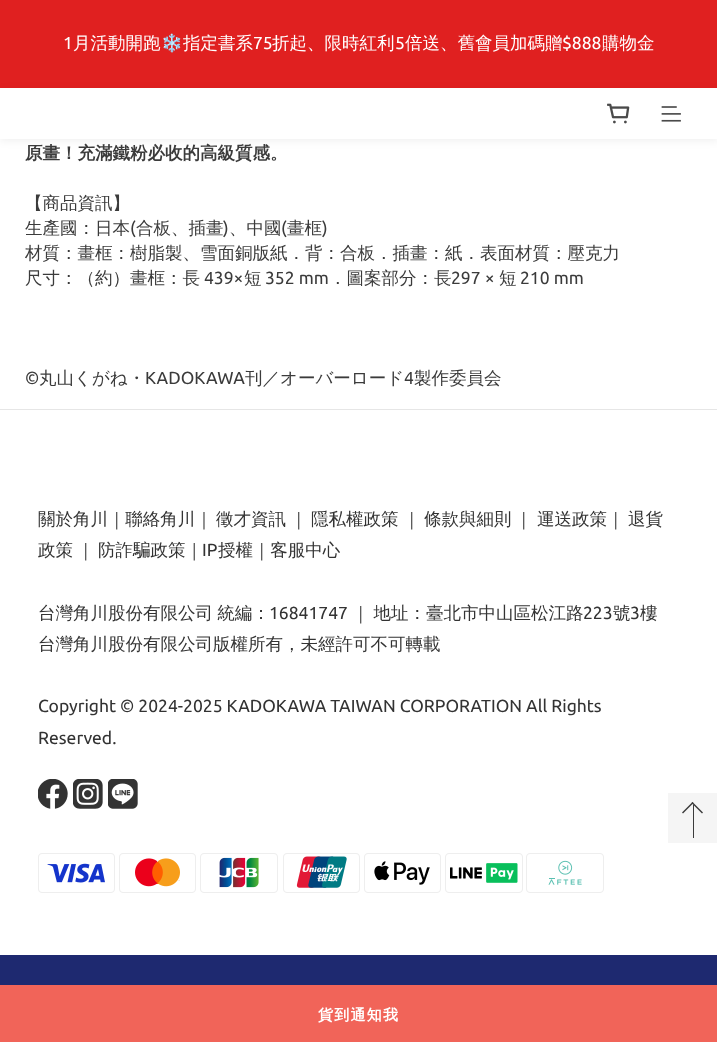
async function draw(canvas) {
  canvas.width = 717;
  canvas.height = 1042;
  const ctx = canvas.getContext('2d');
  ctx.miterLimit = 4;
  ctx.fontKerning = 'normal';
  function label(s, x, y, font, color) {
    ctx.font = font;
    ctx.fillStyle = color;
    ctx.fillText(s, x, y);
  }
  function rect(x, y, w, h, color) {
    ctx.fillStyle = color;
    ctx.fillRect(x, y, w, h);
  }
  async function image(src, x, y, w, h) {
    const img = new Image();
    img.src = src;
    await img.decode();
    ctx.drawImage(img, x, y, w, h);
  }
  let path;

  rect(0, 0, 717, 1042, '#fff');
  rect(0, 0, 717, 88, '#e02020');
  label('1', 63, 49, '17.5px Ubuntu', '#fff');
  label('月活動開跑', 73, 49, '500 17.5px WenQuanYi Zen Hei', '#fff');
  label('❄️', 161, 49, '17.5px Noto Color Emoji', '#fff');
  label('指定書系', 183, 49, '500 17.5px WenQuanYi Zen Hei', '#fff');
  label('75', 253, 49, '17.5px Ubuntu', '#fff');
  label('折起、限時紅利', 272, 49, '500 17.5px WenQuanYi Zen Hei', '#fff');
  label('5', 395, 49, '17.5px Ubuntu', '#fff');
  label('倍送、舊會員加碼贈', 405, 49, '500 17.5px WenQuanYi Zen Hei', '#fff');
  label('$888', 562, 49, '17.5px Ubuntu', '#fff');
  label('購物金', 602, 49, '500 17.5px WenQuanYi Zen Hei', '#fff');
  ctx.fillStyle = '#0000000f';
  ctx.filter = 'blur(4px)';
  ctx.beginPath();
  ctx.rect(0, 90, 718, 51);
  ctx.fill();
  ctx.filter = 'none';
  rect(0, 88, 717, 51, '#fff');
  await image('assets/img1.png', 607, 103, 23, 21);
  await image('assets/img2.png', 661, 106, 20, 16);
  label('原畫！充滿鐵粉必收的高級質感。', 25, 159, 'bold 17.5px WenQuanYi Zen Hei', '#3b3b3b');
  label('【商品資訊】', 25, 209, '500 17.5px WenQuanYi Zen Hei', '#3b3b3b');
  label('生產國：日本', 25, 234, '500 17.5px WenQuanYi Zen Hei', '#3b3b3b');
  label('(', 130, 234, '17.5px Ubuntu', '#3b3b3b');
  label('合板、插畫', 136, 234, '500 17.5px WenQuanYi Zen Hei', '#3b3b3b');
  label(')', 223, 234, '17.5px Ubuntu', '#3b3b3b');
  label('、中國', 229, 234, '500 17.5px WenQuanYi Zen Hei', '#3b3b3b');
  label('(', 281, 234, '17.5px Ubuntu', '#3b3b3b');
  label('畫框', 287, 234, '500 17.5px WenQuanYi Zen Hei', '#3b3b3b');
  label(')', 322, 234, '17.5px Ubuntu', '#3b3b3b');
  label('材質：畫框：樹脂製、雪面銅版紙．背：合板．插畫：紙．表面材質：壓克力', 25, 259, '500 17.5px WenQuanYi Zen Hei', '#3b3b3b');
  label('尺寸：（約）畫框：長', 25, 284, '500 17.5px WenQuanYi Zen Hei', '#3b3b3b');
  label('439×', 204, 284, '17.5px Ubuntu', '#3b3b3b');
  label('短', 244, 284, '500 17.5px WenQuanYi Zen Hei', '#3b3b3b');
  label('352 mm', 265, 284, '17.5px Ubuntu', '#3b3b3b');
  label('．圖案部分：長', 329, 284, '500 17.5px WenQuanYi Zen Hei', '#3b3b3b');
  label('297 ×', 451, 284, '17.5px Ubuntu', '#3b3b3b');
  label('短', 499, 284, '500 17.5px WenQuanYi Zen Hei', '#3b3b3b');
  label('210 mm', 520, 284, '17.5px Ubuntu', '#3b3b3b');
  label('©', 25, 384, '17.5px Ubuntu', '#3b3b3b');
  label('丸山くがね・', 39, 384, '500 17.5px WenQuanYi Zen Hei', '#3b3b3b');
  label('KADOKAWA', 145, 384, '17.5px Ubuntu', '#3b3b3b');
  label('刊／オーバーロード', 245, 384, '500 17.5px WenQuanYi Zen Hei', '#3b3b3b');
  label('4', 404, 384, '17.5px Ubuntu', '#3b3b3b');
  label('製作委員会', 414, 384, '500 17.5px WenQuanYi Zen Hei', '#3b3b3b');
  rect(0, 985, 717, 57, '#f16459');
  ctx.letterSpacing = '1.25px';
  label('貨到通知我', 318, 1020, 'bold 15px WenQuanYi Zen Hei', '#fff');
  rect(0, 409, 717, 1, '#e6e6e6');
  ctx.letterSpacing = '0px';
  label('關於角川｜聯絡角川｜', 38, 525, '500 17.5px WenQuanYi Zen Hei', '#333');
  label('徵才資訊', 216, 525, '500 17.5px WenQuanYi Zen Hei', '#333');
  label('｜', 290, 525, '500 17.5px WenQuanYi Zen Hei', '#333');
  label('隱私權政策', 311, 525, '500 17.5px WenQuanYi Zen Hei', '#333');
  label('｜', 403, 525, '500 17.5px WenQuanYi Zen Hei', '#333');
  label('條款與細則', 424, 525, '500 17.5px WenQuanYi Zen Hei', '#333');
  label('｜', 515, 525, '500 17.5px WenQuanYi Zen Hei', '#333');
  label('運送政策｜', 537, 525, '500 17.5px WenQuanYi Zen Hei', '#333');
  label('退貨', 628, 525, '500 17.5px WenQuanYi Zen Hei', '#333');
  label('政策', 38, 556, '500 17.5px WenQuanYi Zen Hei', '#333');
  label('｜', 77, 556, '500 17.5px WenQuanYi Zen Hei', '#333');
  label('防詐騙政策｜', 98, 556, '500 17.5px WenQuanYi Zen Hei', '#333');
  label('IP', 202, 556, '17.5px Ubuntu', '#333');
  label('授權｜客服中心', 218, 556, '500 17.5px WenQuanYi Zen Hei', '#333');
  ctx.wordSpacing = '-1px';
  label('台灣角川股份有限公司 統編：', 38, 619, '500 17.5px WenQuanYi Zen Hei', '#333');
  ctx.wordSpacing = '0px';
  label('16841747', 269, 619, '17.5px Ubuntu', '#333');
  ctx.wordSpacing = '-1px';
  label('｜ 地址：臺北市中山區松江路', 352, 619, '500 17.5px WenQuanYi Zen Hei', '#333');
  ctx.wordSpacing = '0px';
  label('223', 583, 619, '17.5px Ubuntu', '#333');
  label('號', 613, 619, '500 17.5px WenQuanYi Zen Hei', '#333');
  label('3', 630, 619, '17.5px Ubuntu', '#333');
  label('樓', 640, 619, '500 17.5px WenQuanYi Zen Hei', '#333');
  label('台灣角川股份有限公司版權所有，未經許可不可轉載', 38, 650, '500 17.5px WenQuanYi Zen Hei', '#333');
  label('Copyright © 2024-2025 KADOKAWA TAIWAN CORPORATION All Rights', 38, 712, '17.5px Ubuntu', '#333');
  label('Reserved.', 38, 744, '17.5px Ubuntu', '#333');
  await image('assets/img3.png', 38, 779, 30, 30);
  await image('assets/img4.png', 73, 779, 30, 30);
  await image('assets/img5.png', 108, 779, 30, 30);
  await image('assets/img6.png', 38, 853, 77, 40);
  await image('assets/img7.png', 119, 853, 77, 40);
  await image('assets/img8.png', 200, 853, 78, 40);
  await image('assets/img9.png', 283, 853, 77, 40);
  await image('assets/img10.png', 364, 853, 77, 40);
  await image('assets/img11.png', 445, 853, 78, 40);
  await image('assets/img12.png', 526, 853, 78, 40);
  rect(0, 955, 717, 30, '#1e2970');
  rect(668, 793, 49, 50, '#f5f5f5');
  ctx.fillStyle = '#3b3b3b';
  path = new Path2D('M692.5 802L703 812.5L702 813.5L691.5 803Z');
  ctx.fill(path);
  path = new Path2D('M692.5 802L693.5 803L683 813.5L682 812.5Z');
  ctx.fill(path);
  rect(693, 805, 1, 33, '#3b3b3b');
}

draw(document.querySelector('canvas'));
